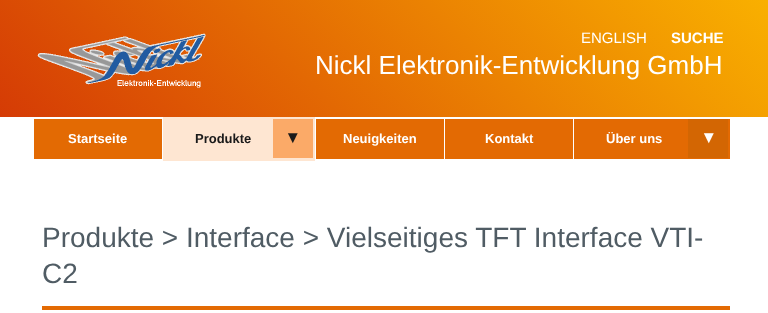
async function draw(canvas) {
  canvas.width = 768;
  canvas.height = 313;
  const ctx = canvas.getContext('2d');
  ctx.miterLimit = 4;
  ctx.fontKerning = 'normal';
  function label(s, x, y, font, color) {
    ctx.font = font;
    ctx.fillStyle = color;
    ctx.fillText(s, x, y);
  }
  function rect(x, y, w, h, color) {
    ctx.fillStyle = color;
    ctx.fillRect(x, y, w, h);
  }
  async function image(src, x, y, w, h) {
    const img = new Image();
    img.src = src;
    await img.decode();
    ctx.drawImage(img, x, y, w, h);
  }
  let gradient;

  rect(0, 0, 768, 313, '#fff');
  gradient = ctx.createLinearGradient(163, 280, 605, -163);
  gradient.addColorStop(0, '#d53b05');
  gradient.addColorStop(1, '#f9b000');
  ctx.fillStyle = gradient;
  ctx.fillRect(0, 0, 768, 117);
  await image('assets/img1.png', 37, 33, 169, 55);
  label('ENGLISH', 581, 43, '15px Liberation Sans', '#fff');
  label('SUCHE', 671, 43, 'bold 15px Liberation Sans', '#fff');
  label('Nickl Elektronik-Entwicklung GmbH', 315, 74, '26px Liberation Sans', '#fff');
  rect(34, 119, 128, 40, '#e36a03');
  label('Startseite', 68, 143, 'bold 13px Liberation Sans', '#fff');
  rect(163, 117, 152, 44, '#fee6d2');
  label('Produkte', 195, 143, 'bold 13px Liberation Sans', '#1a1a1a');
  rect(273, 119, 40, 39, '#fbaa68');
  label('▾', 288, 143, 'bold 18px DejaVu Sans', '#1a1a1a');
  rect(316, 119, 128, 40, '#e36a03');
  label('Neuigkeiten', 343, 143, 'bold 13px Liberation Sans', '#fff');
  rect(445, 119, 128, 40, '#e36a03');
  label('Kontakt', 485, 143, 'bold 13px Liberation Sans', '#fff');
  rect(574, 119, 156, 40, '#e36a03');
  label('Über uns', 606, 143, 'bold 13px Liberation Sans', '#fff');
  rect(688, 119, 40, 39, '#d36603');
  label('▾', 704, 143, 'bold 18px DejaVu Sans', '#fff');
  label('Produkte > Interface > Vielseitiges TFT Interface VTI-', 42, 247, '28px Liberation Sans', '#505c64');
  label('C2', 42, 283, '28px Liberation Sans', '#505c64');
  rect(42, 306, 688, 4, '#e36a03');
}

draw(document.querySelector('canvas'));
